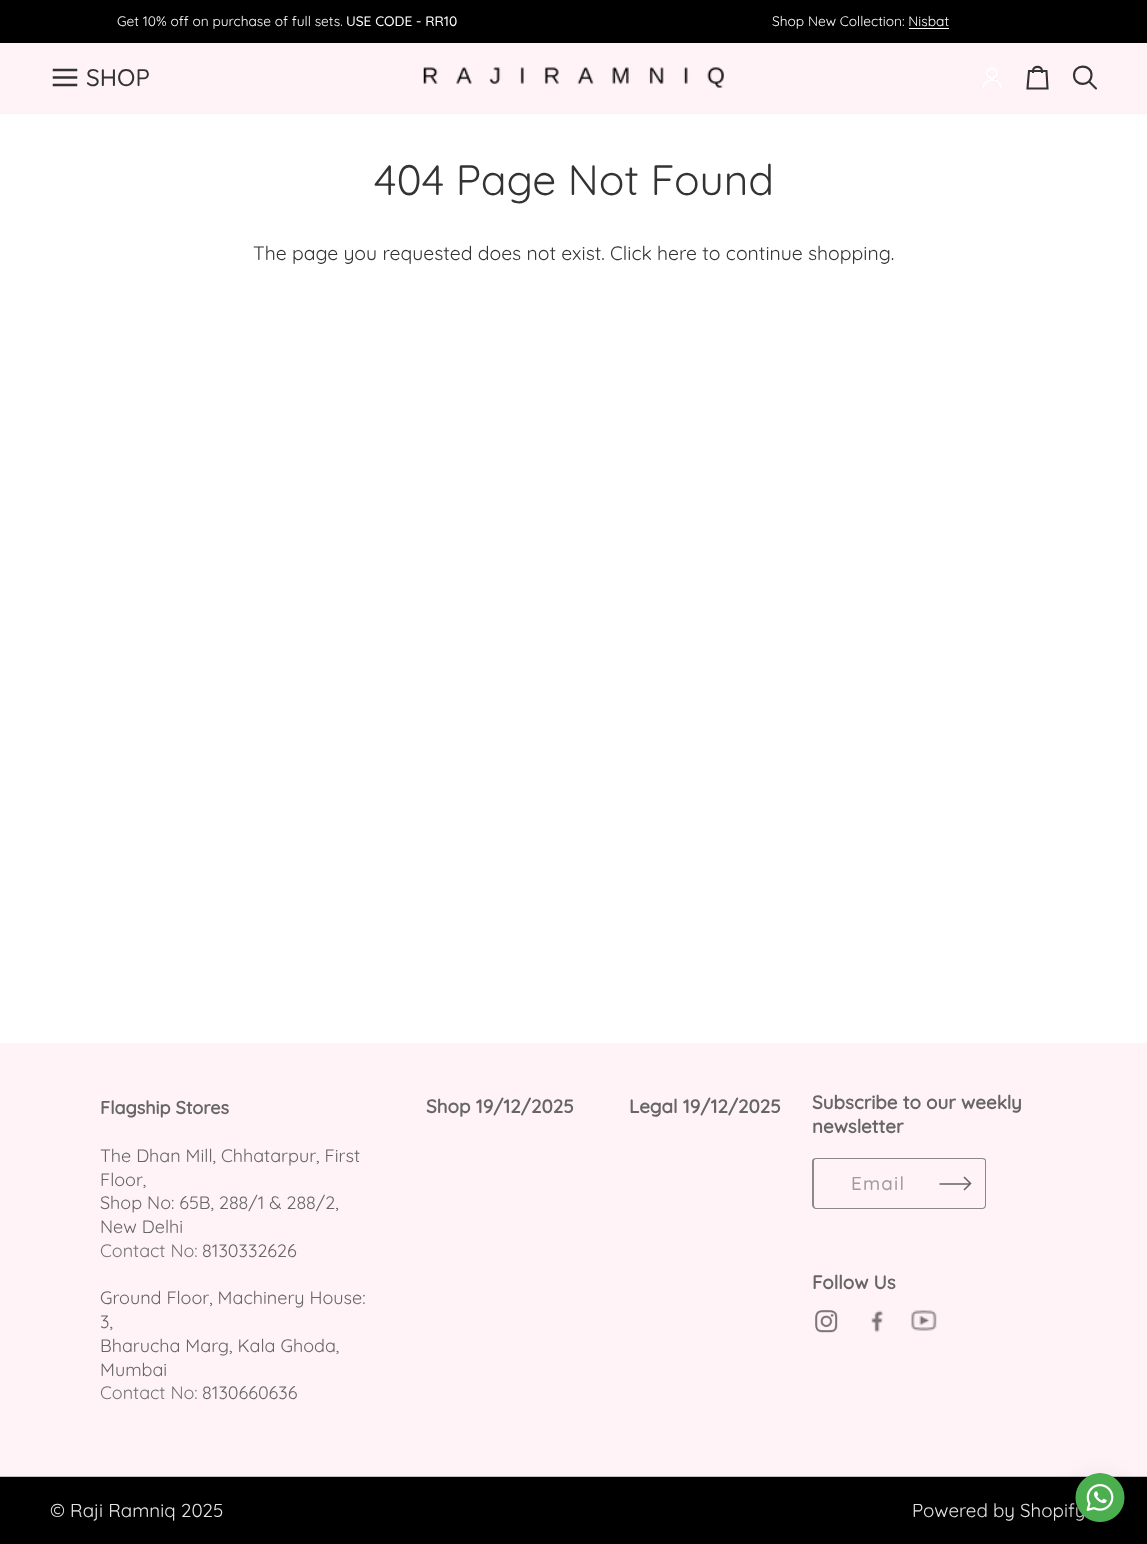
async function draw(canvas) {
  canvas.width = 1147;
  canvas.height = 1544;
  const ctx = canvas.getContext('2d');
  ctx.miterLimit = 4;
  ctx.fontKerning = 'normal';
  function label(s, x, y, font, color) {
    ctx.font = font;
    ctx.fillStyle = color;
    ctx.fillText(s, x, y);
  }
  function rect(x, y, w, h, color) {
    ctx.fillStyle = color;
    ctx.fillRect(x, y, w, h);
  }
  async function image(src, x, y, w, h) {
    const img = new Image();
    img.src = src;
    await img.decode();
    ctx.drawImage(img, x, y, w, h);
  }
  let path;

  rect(0, 0, 1147, 1544, '#fff');
  rect(0, 0, 1147, 43, '#000');
  label('Get 10% off on purchase of full sets.', 117, 26, '13.75px Quicksand', '#fff');
  label('USE CODE - RR10', 346, 26, '500 13.75px Quicksand', '#fff');
  label('Shop New Collection: Nisbat', 772, 26, '13.75px Quicksand', '#fff');
  rect(909, 28, 40, 1, '#fff');
  rect(0, 43, 1147, 70, '#fff3f7');
  rect(0, 113, 1147, 1, '#f7f5f4');
  path = new Path2D('M76 70H54M76 77.5H54M76 85H54');
  ctx.strokeStyle = '#333';
  ctx.lineWidth = 2.5;
  ctx.lineCap = 'square';
  ctx.stroke(path);
  label('SHOP', 86, 86, '500 24px Quicksand', '#333');
  await image('assets/img1.png', 423, 67, 301, 21);
  await image('assets/img2.png', 981, 67, 21, 22);
  path = new Path2D('M1042 73V71H1046.5L1047.5 88.5H1027.5L1029 71H1033C1033 65.5 1042 65.5 1042 71H1033V73');
  ctx.lineWidth = 2.1;
  ctx.lineCap = 'butt';
  ctx.stroke(path);
  path = new Path2D('M1091.5 75C1091.5 86.5 1074.5 87 1074 75.5C1073.5 64 1091.5 63.5 1091.5 75ZM1096 88.5L1089 81.5Z');
  ctx.lineCap = 'round';
  ctx.lineJoin = 'round';
  ctx.stroke(path);
  label('404 Page Not Found', 374, 195, '42.5px Quicksand', '#333');
  label('The page you requested does not exist. Click here to continue shopping.', 253, 260, '19.4px Quicksand', '#333');
  rect(0, 1043, 1147, 433, '#fff3f7');
  label('Flagship Stores', 100, 1114, 'bold 18px Quicksand', '#666');
  label('The Dhan Mill, Chhatarpur, First', 100, 1162, '18px Quicksand', '#666');
  label('Floor,', 100, 1186, '18px Quicksand', '#666');
  label('Shop No: 65B, 288/1 & 288/2,', 100, 1209, '18px Quicksand', '#666');
  label('New Delhi', 100, 1233, '18px Quicksand', '#666');
  label('Contact No:', 100, 1257, '18px Quicksand', '#757475');
  label('8130332626', 202, 1257, '18px Quicksand', '#666');
  label('Ground Floor, Machinery House:', 100, 1304, '18px Quicksand', '#666');
  label('3,', 100, 1328, '18px Quicksand', '#666');
  label('Bharucha Marg, Kala Ghoda,', 100, 1352, '18px Quicksand', '#666');
  label('Mumbai', 100, 1376, '18px Quicksand', '#666');
  label('Contact No:', 100, 1399, '18px Quicksand', '#757475');
  label('8130660636', 202, 1399, '18px Quicksand', '#666');
  label('Shop 19/12/2025', 426, 1113, 'bold 18.75px Quicksand', '#666');
  label('Legal 19/12/2025', 629, 1113, 'bold 18.75px Quicksand', '#666');
  label('Subscribe to our weekly', 812, 1109, 'bold 18.75px Quicksand', '#666');
  label('newsletter', 812, 1133, 'bold 18.75px Quicksand', '#666');
  ctx.fillStyle = '#8a8a8a';
  path = new Path2D('M816 1158H924V1209H816C814 1209 812 1207 812 1205V1161C812 1159 814 1158 816 1158ZM816 1159H924V1208H816C815 1208 814 1206 814 1205V1161C814 1160 815 1159 816 1159Z');
  ctx.fill(path, 'evenodd');
  ctx.letterSpacing = '1.25px';
  label('Email', 851, 1190, '500 18.75px Quicksand', '#9f9c9d');
  ctx.fillStyle = '#8a8a8a';
  path = new Path2D('M924 1158H982C985 1158 986 1159 986 1161V1205C986 1207 985 1209 982 1209H924ZM924 1159H982C984 1159 985 1160 985 1161V1205C985 1206 984 1208 982 1208H924Z');
  ctx.fill(path, 'evenodd');
  path = new Path2D('M964 1177L970.5 1183.5L964 1190M939.5 1184H970.5');
  ctx.strokeStyle = '#666';
  ctx.lineWidth = 1.6;
  ctx.lineCap = 'butt';
  ctx.lineJoin = 'miter';
  ctx.stroke(path);
  ctx.letterSpacing = '0px';
  label('Follow Us', 812, 1289, 'bold 18.75px Quicksand', '#666');
  await image('assets/img3.png', 815, 1310, 23, 23);
  await image('assets/img4.png', 871, 1310, 12, 23);
  await image('assets/img5.png', 911, 1310, 26, 21);
  rect(0, 1477, 1147, 67, '#000');
  rect(0, 1476, 1147, 1, '#c1c1c1');
  label('© Raji Ramniq', 50, 1517, '18.75px Quicksand', '#e6e6e6');
  label('2025', 181, 1517, '18.75px Quicksand', '#e6e6e6');
  label('Powered by Shopify', 912, 1517, '18.75px Quicksand', '#e6e6e6');
  ctx.fillStyle = '#0000002e';
  ctx.filter = 'blur(15.5px)';
  ctx.beginPath();
  ctx.roundRect(1075, 1485, 50, 50, 25);
  ctx.fill();
  ctx.filter = 'none';
  await image('assets/img6.png', 1075, 1473, 50, 49);
}

draw(document.querySelector('canvas'));
